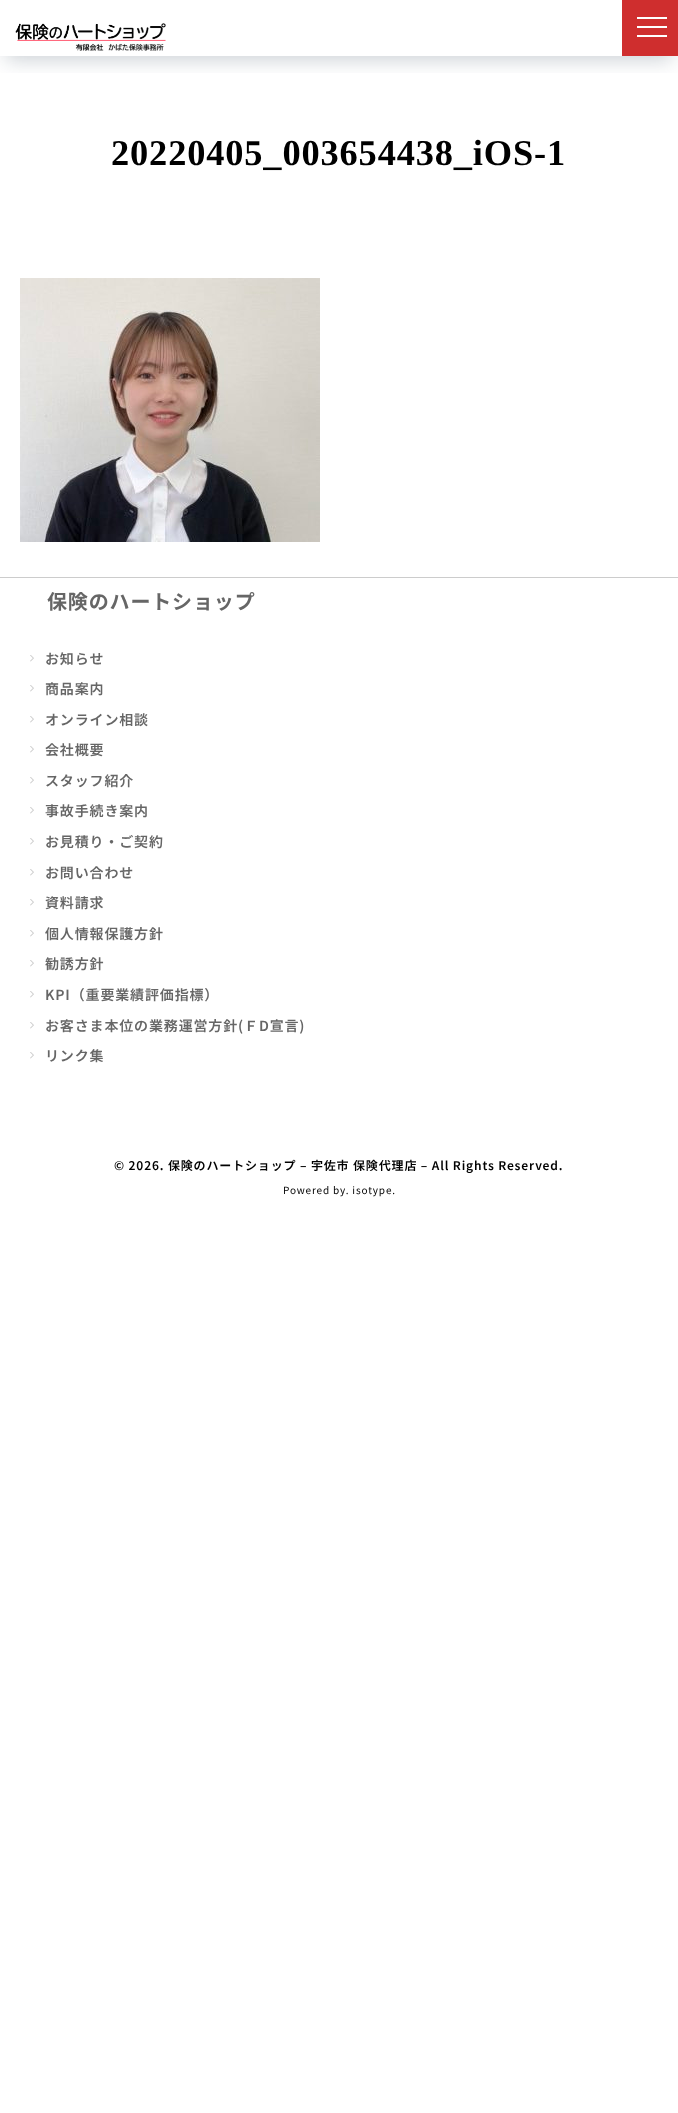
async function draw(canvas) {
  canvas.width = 678;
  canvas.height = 2113;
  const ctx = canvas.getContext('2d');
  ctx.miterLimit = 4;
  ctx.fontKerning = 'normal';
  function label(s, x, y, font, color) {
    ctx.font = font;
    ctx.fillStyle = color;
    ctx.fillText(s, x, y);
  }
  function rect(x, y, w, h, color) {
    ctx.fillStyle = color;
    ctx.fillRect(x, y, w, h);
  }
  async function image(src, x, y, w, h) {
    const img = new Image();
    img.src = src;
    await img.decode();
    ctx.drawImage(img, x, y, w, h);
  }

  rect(0, 0, 678, 2113, '#fff');
  ctx.save();
  ctx.beginPath();
  ctx.rect(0, 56, 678, 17);
  ctx.clip();
  ctx.fillStyle = '#00193233';
  ctx.filter = 'blur(10px)';
  ctx.beginPath();
  ctx.rect(6, 16, 666, 44);
  ctx.fill();
  ctx.filter = 'none';
  ctx.restore();
  await image('assets/img1.png', 15, 23, 151, 28);
  rect(622, 0, 56, 56, '#cf2e2e');
  rect(637, 17, 30, 2, '#fff');
  rect(637, 26, 30, 2, '#fff');
  rect(637, 35, 30, 2, '#fff');
  ctx.letterSpacing = '0.85px';
  label('20220405_003654438_iOS-1', 111, 165, 'bold 36.4px Liberation Serif', '#000');
  await image('assets/img2.png', 20, 278, 300, 264);
  rect(0, 577, 678, 1, '#ccc');
  label('保険のハートショップ', 47, 609, 'bold 20px Noto Sans JP', '#666');
  await image('assets/img3.png', 30, 655, 4, 7);
  label('お知らせ', 45, 664, '600 14px Noto Sans JP', '#666');
  await image('assets/img3.png', 30, 685, 4, 7);
  label('商品案内', 45, 694, '600 14px Noto Sans JP', '#666');
  await image('assets/img3.png', 30, 716, 4, 7);
  label('オンライン相談', 45, 725, '600 14px Noto Sans JP', '#666');
  await image('assets/img3.png', 30, 746, 4, 7);
  label('会社概要', 45, 755, '600 14px Noto Sans JP', '#666');
  await image('assets/img3.png', 30, 777, 4, 7);
  label('スタッフ紹介', 45, 786, '600 14px Noto Sans JP', '#666');
  await image('assets/img3.png', 30, 807, 4, 7);
  label('事故手続き案内', 45, 816, '600 14px Noto Sans JP', '#666');
  await image('assets/img3.png', 30, 838, 4, 7);
  label('お見積り・ご契約', 45, 847, '600 14px Noto Sans JP', '#666');
  await image('assets/img3.png', 30, 869, 4, 7);
  label('お問い合わせ', 45, 878, '600 14px Noto Sans JP', '#666');
  await image('assets/img3.png', 30, 899, 4, 7);
  label('資料請求', 45, 908, '600 14px Noto Sans JP', '#666');
  await image('assets/img3.png', 30, 930, 4, 7);
  label('個人情報保護方針', 45, 939, '600 14px Noto Sans JP', '#666');
  await image('assets/img3.png', 30, 960, 4, 7);
  label('勧誘方針', 45, 969, '600 14px Noto Sans JP', '#666');
  await image('assets/img3.png', 30, 991, 4, 7);
  label('KPI（重要業績評価指標）', 45, 1000, '600 14px Noto Sans JP', '#666');
  await image('assets/img3.png', 30, 1022, 4, 7);
  label('お客さま本位の業務運営方針(ＦD宣言)', 45, 1031, '600 14px Noto Sans JP', '#666');
  await image('assets/img3.png', 30, 1052, 4, 7);
  label('リンク集', 45, 1061, '600 14px Noto Sans JP', '#666');
  label('© 2026. 保険のハートショップ – 宇佐市 保険代理店 – All Rights Reserved.', 114, 1170, '600 12px Noto Sans JP', '#000');
  label('Powered by. isotype.', 283, 1194, '10px Noto Sans JP', '#000');
}

draw(document.querySelector('canvas'));
